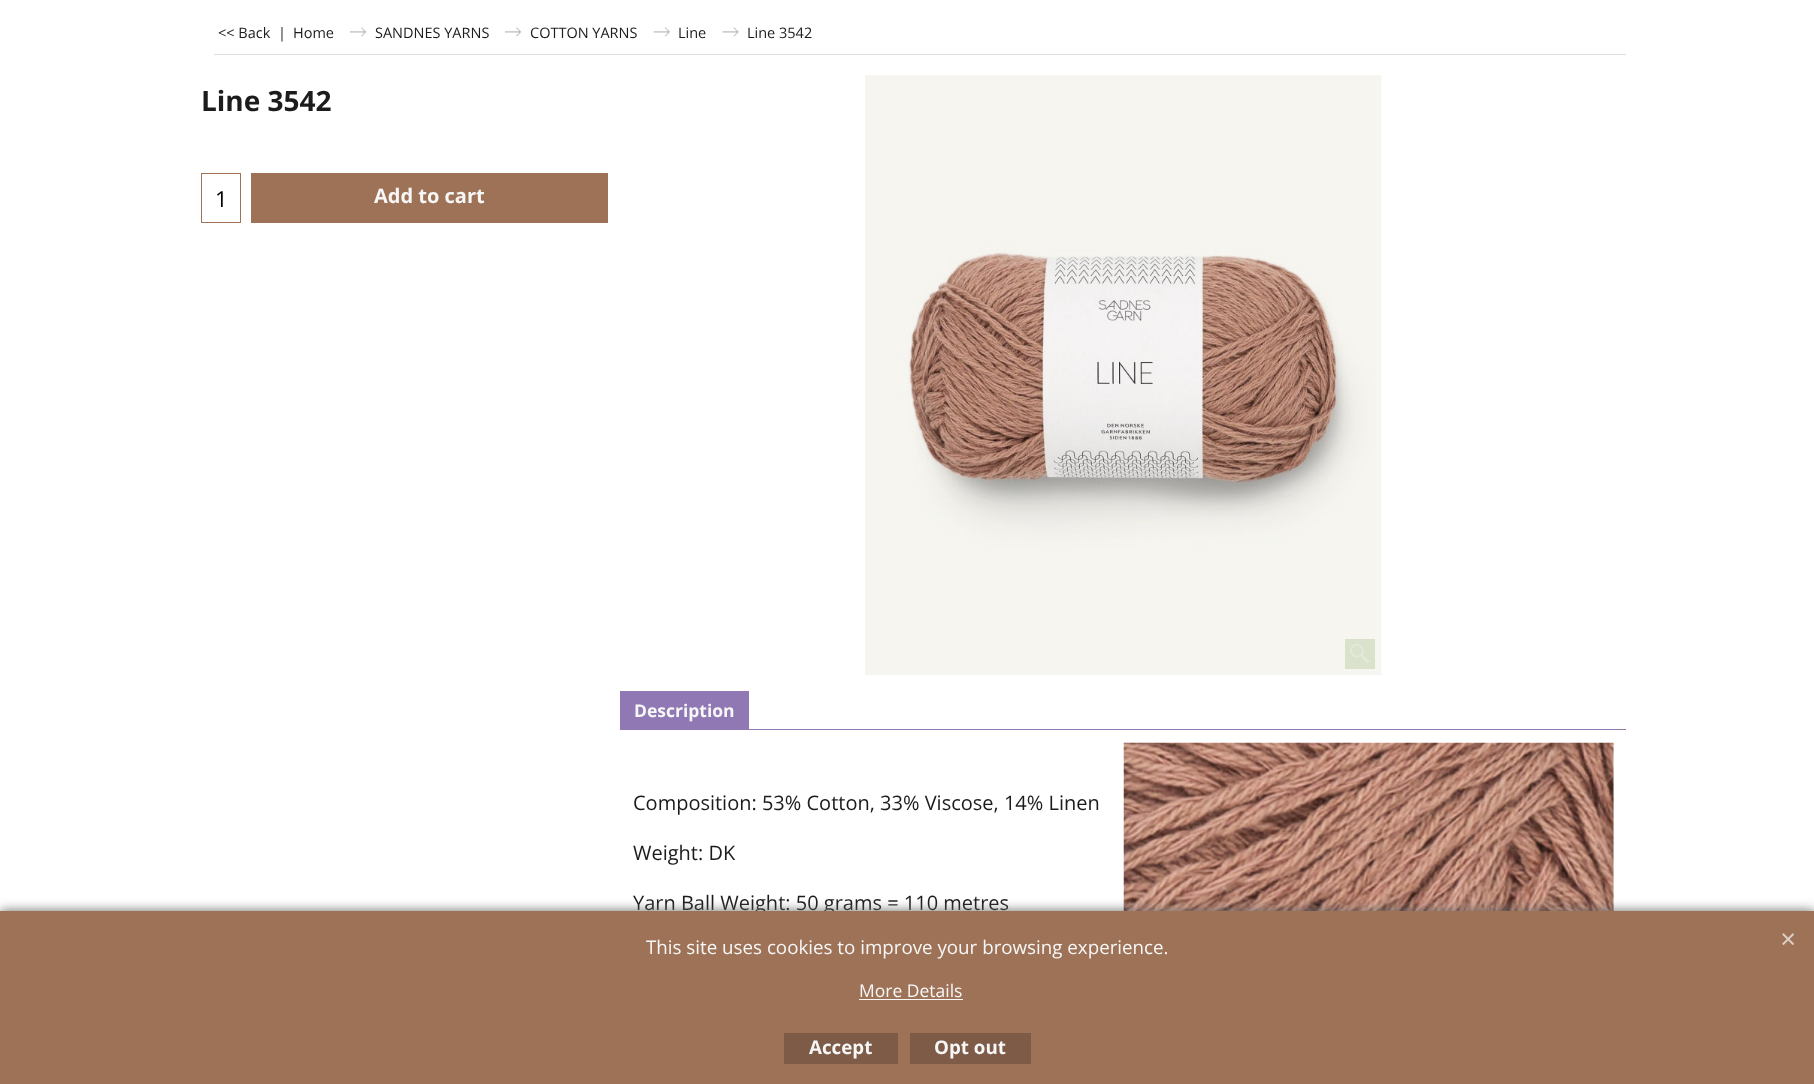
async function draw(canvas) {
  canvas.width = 1814;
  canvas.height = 1084;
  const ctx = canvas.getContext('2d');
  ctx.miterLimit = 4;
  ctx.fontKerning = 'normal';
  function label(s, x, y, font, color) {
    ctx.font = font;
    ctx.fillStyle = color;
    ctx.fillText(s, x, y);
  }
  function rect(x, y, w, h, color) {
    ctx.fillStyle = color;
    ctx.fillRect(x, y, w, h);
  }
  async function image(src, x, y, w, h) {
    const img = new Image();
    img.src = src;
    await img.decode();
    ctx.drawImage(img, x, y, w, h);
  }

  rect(0, 0, 1814, 1084, '#fff');
  rect(214, 54, 1412, 1, '#dedede');
  label('<< Back', 218, 38, '14.5px Open Sans', '#1c1c1c');
  label('|', 278, 38, '14.5px Open Sans', '#1c1c1c');
  label('Home', 293, 38, '14.5px Open Sans', '#1c1c1c');
  await image('assets/img1.png', 350, 27, 17, 10);
  label('SANDNES YARNS', 375, 38, '14.5px Open Sans', '#1c1c1c');
  await image('assets/img1.png', 505, 27, 17, 10);
  label('COTTON YARNS', 530, 38, '14.5px Open Sans', '#1c1c1c');
  await image('assets/img2.png', 653, 27, 17, 10);
  label('Line', 678, 38, '14.5px Open Sans', '#1c1c1c');
  await image('assets/img3.png', 722, 27, 17, 10);
  label('Line 3542', 747, 38, '14.5px Open Sans', '#1c1c1c');
  label('Line 3542', 201, 111, 'bold 28px Open Sans', '#1c1c1c');
  ctx.strokeStyle = '#9d7257';
  ctx.strokeRect(201.5, 173.5, 39, 49);
  label('1', 215, 207, '22px Open Sans', '#000');
  rect(251, 173, 357, 50, '#9d7257');
  label('Add to cart', 374, 203, 'bold 20px Open Sans', '#f7f7f7');
  await image('assets/img4.png', 865, 75, 517, 600);
  rect(1345, 639, 30, 30, '#dbe2cc');
  await image('assets/img5.png', 1350, 644, 20, 20);
  rect(620, 691, 129, 39, '#8f78b4');
  label('Description', 634, 717, 'bold 17.5px Open Sans', '#f7f7f7');
  rect(749, 729, 877, 1, '#8f78b4');
  label('Composition: 53% Cotton, 33% Viscose, 14% Linen', 633, 810, '20px Open Sans', '#1c1c1c');
  label('Weight: DK', 633, 860, '20px Open Sans', '#1c1c1c');
  label('Yarn Ball Weight: 50 grams = 110 metres', 633, 910, '20px Open Sans', '#1c1c1c');
  await image('assets/img6.png', 1123, 742, 491, 169);
  ctx.fillStyle = '#666';
  ctx.filter = 'blur(6px)';
  ctx.beginPath();
  ctx.rect(0, 911, 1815, 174);
  ctx.fill();
  ctx.filter = 'none';
  rect(0, 911, 1814, 173, '#9d7257');
  label('This site uses cookies to improve your browsing experience.', 646, 954, '18.75px Open Sans', '#f7f7f7');
  label('More Details', 859, 997, '17.5px Open Sans', '#f7f7f7');
  rect(859, 999, 104, 1, '#f7f7f7');
  await image('assets/img7.png', 1782, 933, 12, 12);
  rect(784, 1033, 114, 31, '#7e5b46');
  label('Accept', 809, 1054, 'bold 18.75px Open Sans', '#f7f7f7');
  rect(910, 1033, 121, 31, '#7e5b46');
  label('Opt out', 934, 1054, 'bold 18.75px Open Sans', '#f7f7f7');
}

draw(document.querySelector('canvas'));
